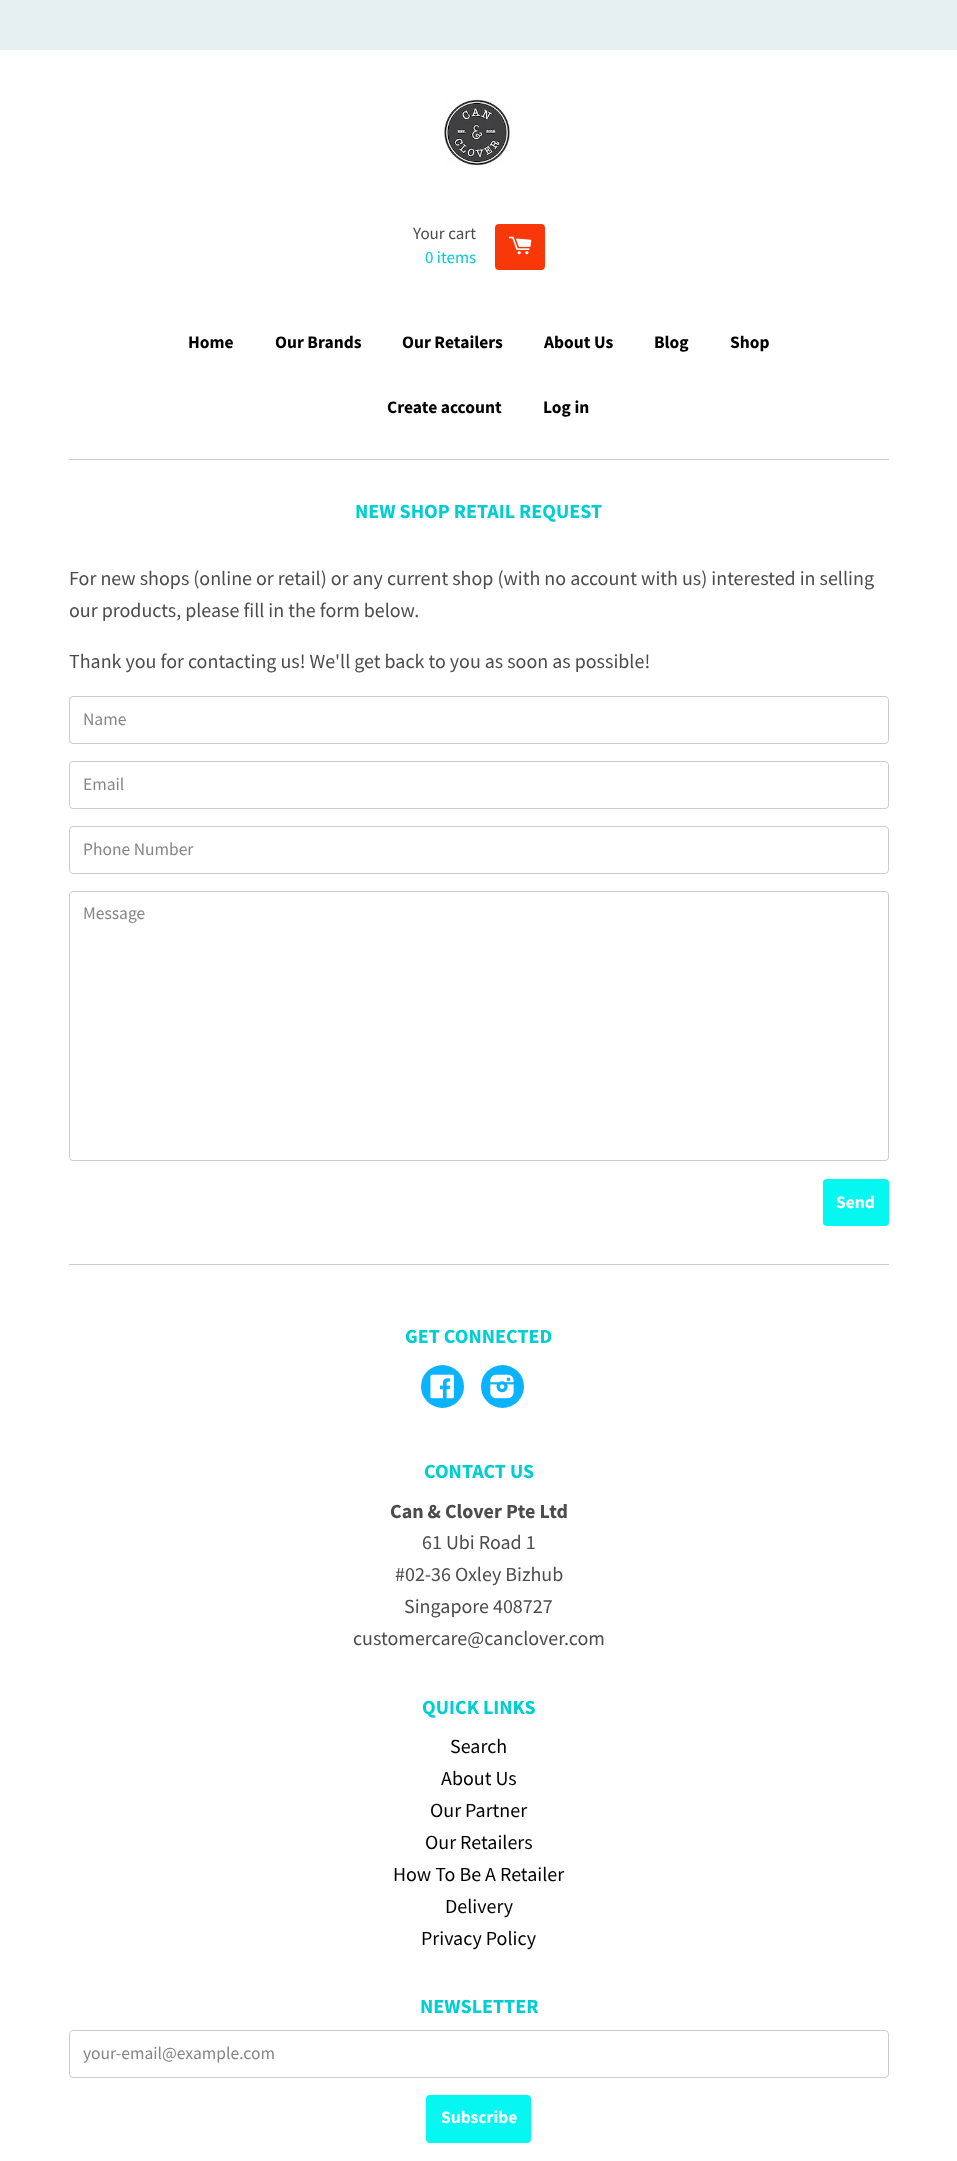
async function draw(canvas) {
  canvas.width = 957;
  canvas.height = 2161;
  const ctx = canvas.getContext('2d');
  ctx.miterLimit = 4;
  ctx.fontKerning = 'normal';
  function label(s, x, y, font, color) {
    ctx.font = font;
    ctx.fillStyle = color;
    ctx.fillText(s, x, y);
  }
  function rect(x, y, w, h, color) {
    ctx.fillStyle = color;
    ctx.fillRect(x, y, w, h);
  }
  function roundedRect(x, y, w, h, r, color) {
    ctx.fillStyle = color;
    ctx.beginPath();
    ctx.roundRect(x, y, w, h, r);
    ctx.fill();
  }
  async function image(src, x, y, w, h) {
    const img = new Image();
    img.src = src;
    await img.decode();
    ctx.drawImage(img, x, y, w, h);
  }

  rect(0, 0, 957, 2161, '#e6f0f0');
  rect(0, 50, 957, 2111, '#fff');
  await image('assets/img1.png', 444, 99, 67, 67);
  label('Your cart', 413, 239, '17px Source Sans Pro', '#4c4c4c');
  label('0 items', 425, 263, '17px Source Sans Pro', '#00ced1');
  roundedRect(495, 224, 50, 46, 4, '#f83808');
  await image('assets/img2.png', 508, 236, 24, 19);
  label('Home', 188, 348, 'bold 17.5px Source Sans Pro', '#000');
  label('Our Brands', 275, 348, 'bold 17.5px Source Sans Pro', '#000');
  label('Our Retailers', 402, 348, 'bold 17.5px Source Sans Pro', '#000');
  label('About Us', 544, 348, 'bold 17.5px Source Sans Pro', '#000');
  label('Blog', 654, 348, 'bold 17.5px Source Sans Pro', '#000');
  label('Shop', 730, 348, 'bold 17.5px Source Sans Pro', '#000');
  label('Create account', 387, 413, 'bold 17.5px Source Sans Pro', '#000');
  label('Log in', 543, 413, 'bold 17.5px Source Sans Pro', '#000');
  rect(69, 459, 820, 1, '#ccc');
  label('NEW SHOP RETAIL REQUEST', 355, 518, 'bold 20px Source Sans Pro', '#00ced1');
  label('For new shops (online or retail) or any current shop (with no account with us) interested in selling', 69, 585, '20px Source Sans Pro', '#4c4c4c');
  label('our products, please fill in the form below.', 69, 617, '20px Source Sans Pro', '#4c4c4c');
  label('Thank you for contacting us! We\'ll get back to you as soon as possible!', 69, 668, '20px Source Sans Pro', '#4c4c4c');
  ctx.beginPath();
  ctx.roundRect(69.5, 696.5, 819, 47, 3.5);
  ctx.strokeStyle = '#ccc';
  ctx.stroke();
  label('Name', 83, 725, '17.5px Source Sans Pro', '#858585');
  ctx.beginPath();
  ctx.roundRect(69.5, 761.5, 819, 47, 3.5);
  ctx.stroke();
  label('Email', 83, 790, '17.5px Source Sans Pro', '#858585');
  ctx.beginPath();
  ctx.roundRect(69.5, 826.5, 819, 47, 3.5);
  ctx.stroke();
  label('Phone Number', 83, 855, '17.5px Source Sans Pro', '#858585');
  ctx.beginPath();
  ctx.roundRect(69.5, 891.5, 819, 269, 3.5);
  ctx.stroke();
  label('Message', 83, 919, '17.5px Source Sans Pro', '#858585');
  roundedRect(823, 1179, 66, 47, 4, '#06f6f2');
  label('Send', 836, 1208, 'bold 17.5px Source Sans Pro', '#fff');
  rect(69, 1264, 820, 1, '#ccc');
  label('GET CONNECTED', 405, 1343, 'bold 20px Source Sans Pro', '#00ced1');
  ctx.fillStyle = '#0bb3fc';
  ctx.beginPath();
  ctx.arc(442.5, 1386.5, 21.5, 0, 2 * Math.PI);
  ctx.fill();
  await image('assets/img3.png', 430, 1374, 24, 25);
  ctx.beginPath();
  ctx.arc(502.5, 1386.5, 21.5, 0, 2 * Math.PI);
  ctx.fill();
  await image('assets/img4.png', 490, 1374, 24, 25);
  label('CONTACT US', 424, 1478, 'bold 20px Source Sans Pro', '#00ced1');
  label('Can & Clover Pte Ltd', 390, 1518, 'bold 20px Source Sans Pro', '#4c4c4c');
  label('61 Ubi Road 1', 422, 1549, '20px Source Sans Pro', '#4c4c4c');
  label('#02-36 Oxley Bizhub', 395, 1581, '20px Source Sans Pro', '#4c4c4c');
  label('Singapore 408727', 404, 1613, '20px Source Sans Pro', '#4c4c4c');
  label('customercare@canclover.com', 353, 1645, '20px Source Sans Pro', '#4c4c4c');
  label('QUICK LINKS', 422, 1714, 'bold 20px Source Sans Pro', '#00ced1');
  label('Search', 450, 1753, '20px Source Sans Pro', '#000');
  label('About Us', 441, 1785, '20px Source Sans Pro', '#000');
  label('Our Partner', 430, 1817, '20px Source Sans Pro', '#000');
  label('Our Retailers', 425, 1849, '20px Source Sans Pro', '#000');
  label('How To Be A Retailer', 393, 1881, '20px Source Sans Pro', '#000');
  label('Delivery', 445, 1913, '20px Source Sans Pro', '#000');
  label('Privacy Policy', 421, 1945, '20px Source Sans Pro', '#000');
  label('NEWSLETTER', 420, 2013, 'bold 20px Source Sans Pro', '#00ced1');
  ctx.beginPath();
  ctx.roundRect(69.5, 2030.5, 819, 47, 3.5);
  ctx.stroke();
  label('your-email@example.com', 83, 2059, '17.5px Source Sans Pro', '#858585');
  roundedRect(426, 2095, 105, 48, 4, '#06f6f2');
  label('Subscribe', 441, 2123, 'bold 17.5px Source Sans Pro', '#fff');
}

draw(document.querySelector('canvas'));
